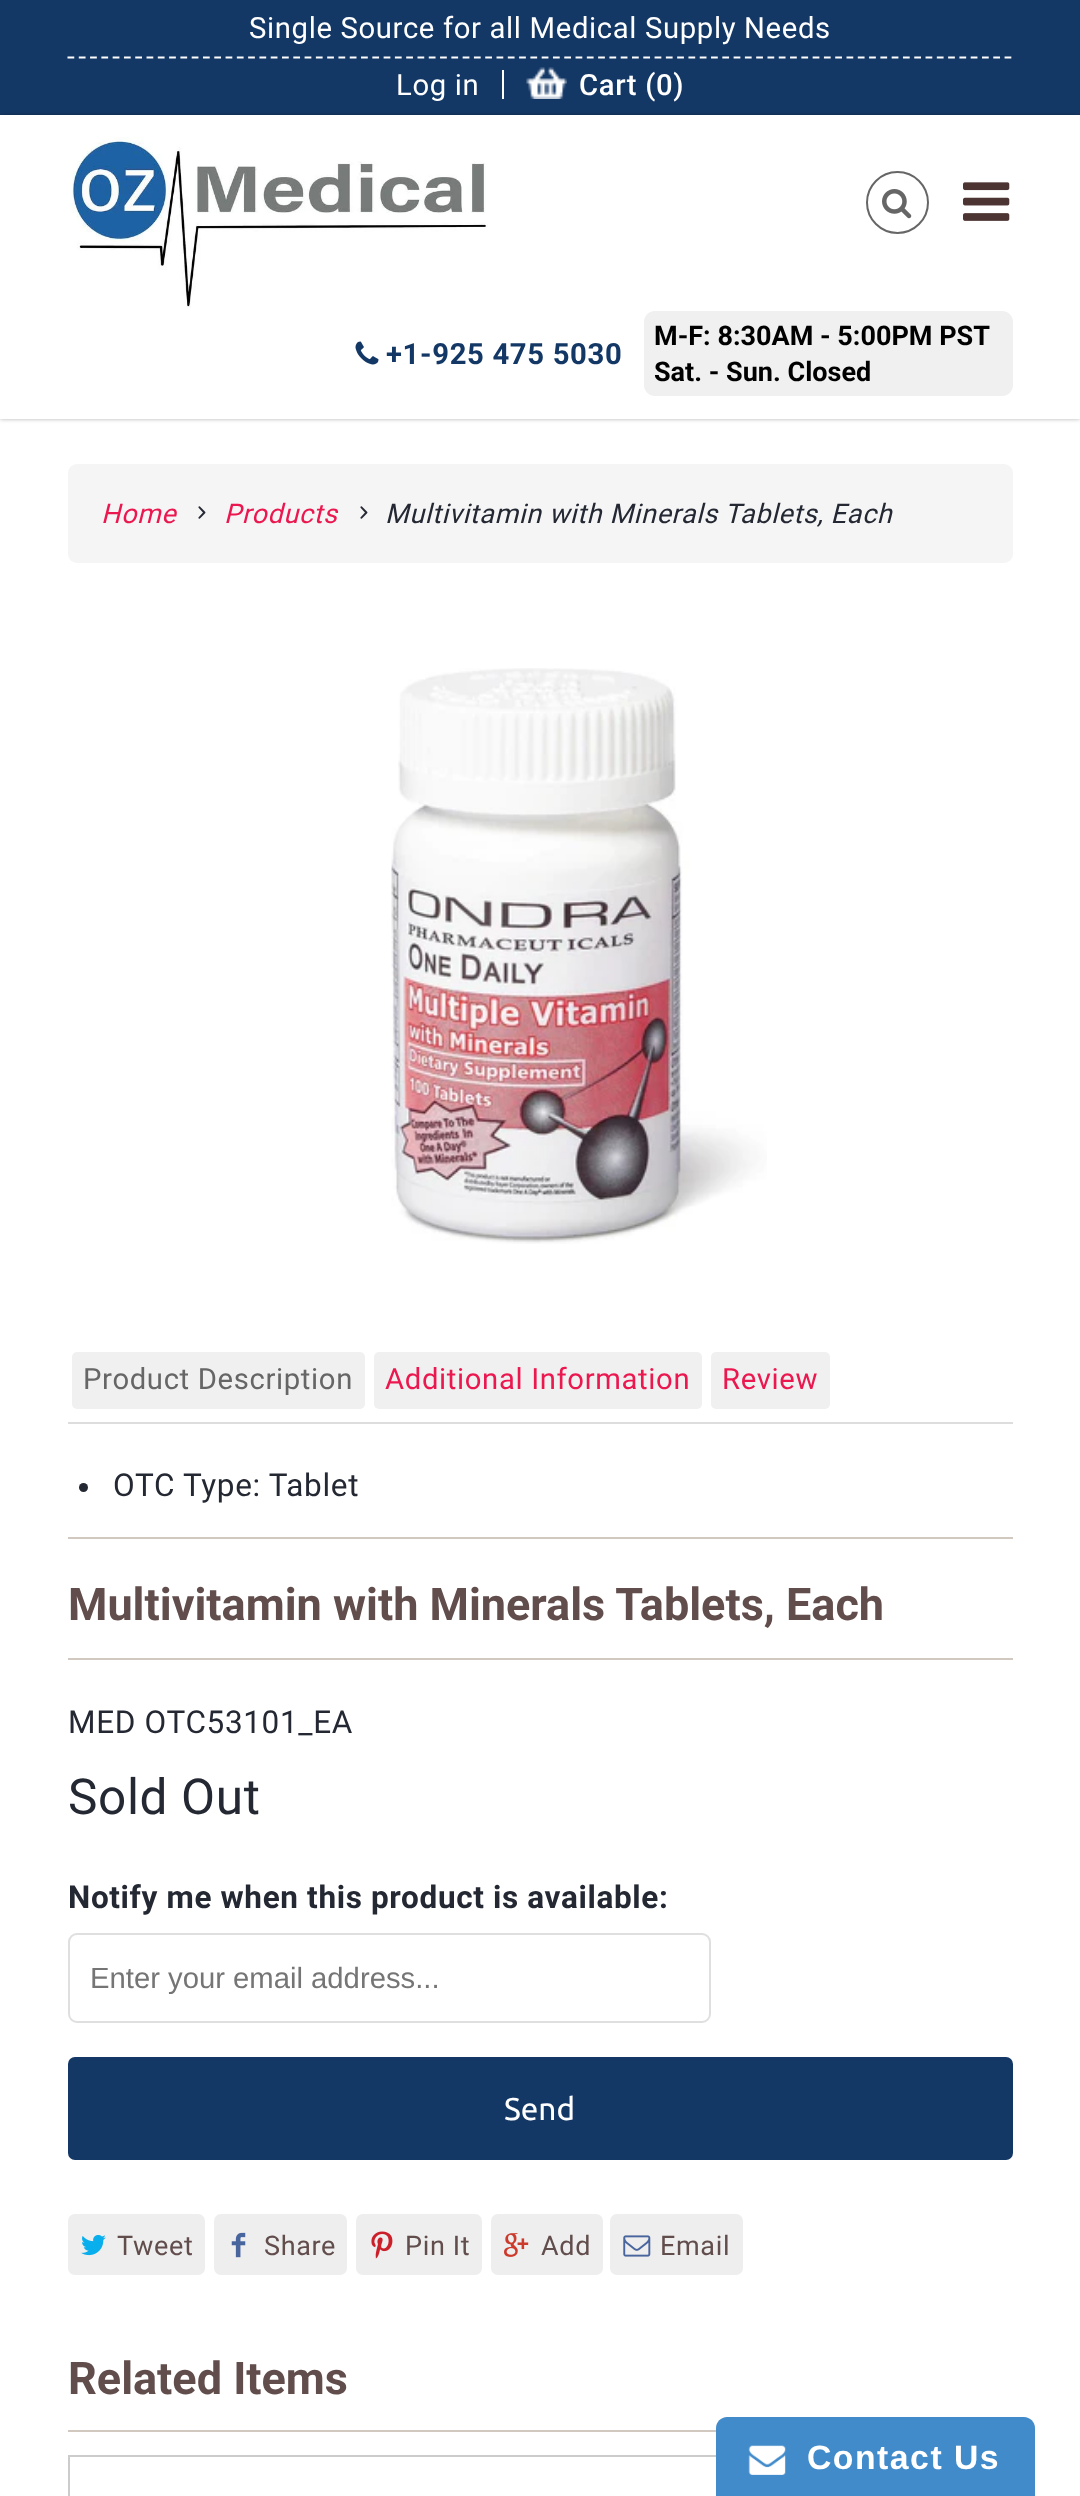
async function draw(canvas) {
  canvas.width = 1080;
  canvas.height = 2496;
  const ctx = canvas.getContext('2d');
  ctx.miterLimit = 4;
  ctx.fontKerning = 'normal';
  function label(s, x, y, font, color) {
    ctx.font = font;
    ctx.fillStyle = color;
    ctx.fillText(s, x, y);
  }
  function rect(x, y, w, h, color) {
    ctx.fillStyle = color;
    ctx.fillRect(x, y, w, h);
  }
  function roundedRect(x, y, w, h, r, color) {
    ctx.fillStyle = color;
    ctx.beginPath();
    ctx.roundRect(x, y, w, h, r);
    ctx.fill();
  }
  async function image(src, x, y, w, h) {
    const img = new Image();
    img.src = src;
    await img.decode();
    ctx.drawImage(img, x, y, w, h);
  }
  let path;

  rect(0, 0, 1080, 2496, '#fff');
  rect(0, 0, 1080, 115, '#143866');
  path = new Path2D('M67.5 57.5H1012.5');
  ctx.strokeStyle = '#fff';
  ctx.lineWidth = 2.2;
  ctx.setLineDash([6.75, 4.54]);
  ctx.stroke(path);
  ctx.letterSpacing = '0.65px';
  label('Single Source for all Medical Supply Needs', 249, 38, '29.25px Roboto', '#fff');
  rect(502, 70, 2, 29, '#fff');
  label('Log in', 396, 95, '29.25px Roboto', '#fff');
  await image('assets/img1.png', 526, 67, 41, 32);
  label('Cart (0)', 579, 95, '500 29.25px Roboto', '#fff');
  ctx.save();
  path = new Path2D('M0 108H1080V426H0ZM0 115H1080V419H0Z');
  ctx.clip(path, 'evenodd');
  ctx.fillStyle = '#0000004d';
  ctx.filter = 'blur(2px)';
  ctx.beginPath();
  ctx.rect(0, 115, 1080, 304);
  ctx.fill();
  ctx.filter = 'none';
  ctx.restore();
  await image('assets/img2.png', 963, 182, 47, 39);
  await image('assets/img3.png', 70, 137, 418, 171);
  await image('assets/img4.png', 355, 341, 24, 24);
  label('+1-925 475 5030', 386, 364, 'bold 29.25px Roboto', '#143866');
  ctx.beginPath();
  ctx.arc(897.5, 202.5, 30.5, 0, 2 * Math.PI);
  ctx.strokeStyle = '#666';
  ctx.lineWidth = 2;
  ctx.setLineDash([]);
  ctx.stroke();
  await image('assets/img5.png', 882, 189, 30, 30);
  roundedRect(644, 311, 369, 85, 11, '#f0f0f0');
  ctx.letterSpacing = '0px';
  label('M-F: 8:30AM - 5:00PM PST', 654, 345, 'bold 27px Roboto', '#000');
  label('Sat. - Sun. Closed', 654, 381, 'bold 27px Roboto', '#000');
  roundedRect(68, 464, 945, 99, 9, '#f5f5f5');
  ctx.letterSpacing = '0.65px';
  label('Home', 101, 523, 'italic 27px Roboto', '#eb174f');
  await image('assets/img6.png', 198, 506, 8, 13);
  label('Products', 224, 523, 'italic 27px Roboto', '#eb174f');
  await image('assets/img6.png', 360, 506, 8, 13);
  label('Multivitamin with Minerals Tablets, Each', 385, 523, 'italic 27px Roboto', '#242833');
  await image('assets/img7.png', 391, 668, 376, 576);
  rect(68, 1422, 945, 2, '#ddd');
  roundedRect(72, 1352, 293, 57, 5, '#f0f0f0');
  label('Product Description', 83, 1389, '29.25px Roboto', '#666');
  roundedRect(374, 1352, 328, 57, 5, '#f0f0f0');
  label('Additional Information', 385, 1389, '29.25px Roboto', '#eb174f');
  roundedRect(711, 1352, 119, 57, 5, '#f0f0f0');
  label('Review', 722, 1389, '29.25px Roboto', '#eb174f');
  ctx.fillStyle = '#242833';
  ctx.beginPath();
  ctx.arc(83.5, 1487.5, 4.5, 0, 2 * Math.PI);
  ctx.fill();
  label('OTC Type: Tablet', 113, 1496, '31.5px Roboto', '#242833');
  rect(68, 1537, 945, 2, '#d1c8bf');
  rect(68, 1658, 945, 2, '#d1c8bf');
  ctx.letterSpacing = '0px';
  label('Multivitamin with Minerals Tablets, Each', 68, 1620, 'bold 45px Roboto', '#614d4b');
  ctx.letterSpacing = '0.65px';
  label('MED OTC53101_EA', 68, 1733, '31.5px Roboto', '#242833');
  label('Sold Out', 68, 1814, '49.5px Roboto', '#242833');
  label('Notify me when this product is available:', 68, 1908, 'bold 31.5px Roboto', '#242833');
  ctx.beginPath();
  ctx.roundRect(69, 1934, 641, 88, 8);
  ctx.strokeStyle = '#dfdfdf';
  ctx.stroke();
  ctx.letterSpacing = '0px';
  label('Enter your email address...', 90, 1988, '29.25px Liberation Sans', '#757575');
  ctx.fillStyle = '#143866';
  ctx.beginPath();
  ctx.roundRect(69, 2058, 943, 101, 6);
  ctx.fill();
  ctx.strokeStyle = '#143866';
  ctx.stroke();
  label('Send', 504, 2120, '31.5px Ubuntu', '#fff');
  roundedRect(68, 2214, 137, 61, 7, '#eee');
  await image('assets/img8.png', 81, 2235, 25, 21);
  ctx.letterSpacing = '0.65px';
  label('Tweet', 117, 2255, '27px Roboto', '#614d4b');
  roundedRect(214, 2214, 133, 61, 7, '#eee');
  await image('assets/img9.png', 231, 2232, 15, 26);
  label('Share', 264, 2255, '27px Roboto', '#614d4b');
  roundedRect(356, 2214, 126, 61, 7, '#eee');
  await image('assets/img10.png', 371, 2231, 22, 28);
  label('Pin It', 405, 2255, '27px Roboto', '#614d4b');
  roundedRect(491, 2214, 112, 61, 7, '#eee');
  await image('assets/img11.png', 504, 2233, 25, 24);
  label('Add', 541, 2255, '27px Roboto', '#614d4b');
  roundedRect(610, 2214, 133, 61, 7, '#eee');
  await image('assets/img12.png', 623, 2235, 28, 22);
  label('Email', 660, 2255, '27px Roboto', '#614d4b');
  rect(68, 2430, 648, 2, '#d1c8bf');
  ctx.letterSpacing = '0px';
  label('Related Items', 68, 2394, 'bold 45px Roboto', '#614d4b');
  ctx.strokeStyle = '#ccc';
  ctx.strokeRect(69, 2456, 943, 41);
  ctx.fillStyle = '#428bca';
  path = new Path2D('M727 2417H1024C1030 2417 1035 2422 1035 2428V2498H716V2428C716 2422 721 2417 727 2417Z');
  ctx.fill(path);
  await image('assets/img13.png', 748, 2445, 38, 30);
  ctx.letterSpacing = '1.5px';
  label('Contact Us', 807, 2469, 'bold 33.75px Liberation Sans', '#fff');
}

draw(document.querySelector('canvas'));
